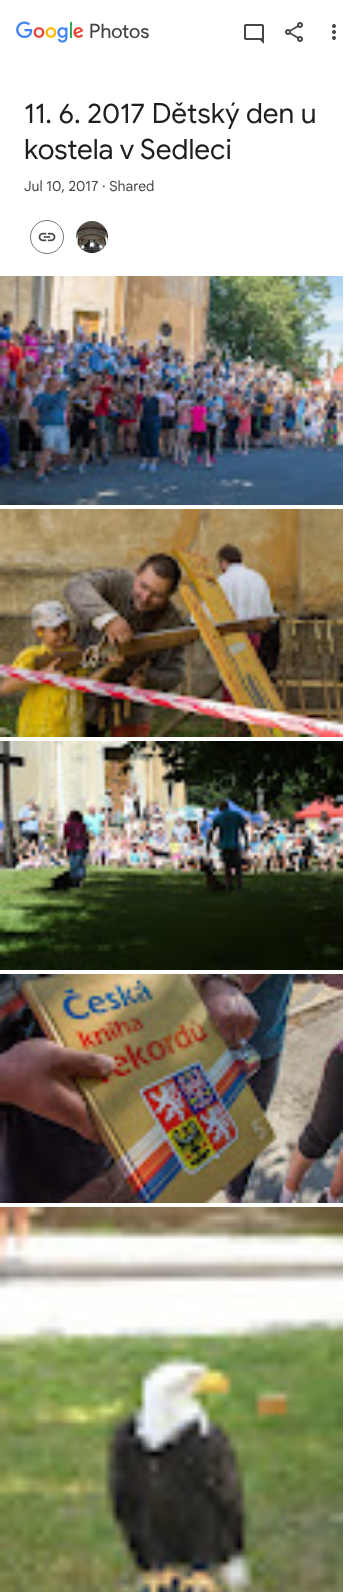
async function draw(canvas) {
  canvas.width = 358;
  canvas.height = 1592;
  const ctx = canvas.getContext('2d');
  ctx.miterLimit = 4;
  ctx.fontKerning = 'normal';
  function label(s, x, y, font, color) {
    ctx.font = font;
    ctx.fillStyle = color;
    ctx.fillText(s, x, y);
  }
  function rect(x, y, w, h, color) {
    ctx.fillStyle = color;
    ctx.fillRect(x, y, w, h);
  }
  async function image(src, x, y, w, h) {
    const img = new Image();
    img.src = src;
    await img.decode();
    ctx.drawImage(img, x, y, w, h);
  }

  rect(0, 0, 358, 1592, '#fff');
  await image('assets/img1.png', 16, 21, 68, 22);
  label('Photos', 89, 38, '20px Product Sans', '#444746');
  await image('assets/img2.png', 244, 24, 20, 20);
  await image('assets/img3.png', 285, 22, 18, 20);
  await image('assets/img4.png', 332, 24, 4, 16);
  label('11. 6. 2017 Dětský den u', 24, 123, '28px Google Sans', '#1f1f1f');
  label('kostela v Sedleci', 24, 159, '28px Google Sans', '#1f1f1f');
  label('Jul 10, 2017 · Shared', 24, 191, '14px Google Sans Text', '#444746');
  ctx.beginPath();
  ctx.arc(47, 237, 16.5, 0, 2 * Math.PI);
  ctx.strokeStyle = '#747775';
  ctx.stroke();
  await image('assets/img5.png', 38, 232, 18, 10);
  await image('assets/img6.png', 76, 221, 32, 32);
  await image('assets/img7.png', 0, 276, 343, 229);
  await image('assets/img8.png', 0, 509, 343, 228);
  await image('assets/img9.png', 0, 741, 343, 229);
  await image('assets/img10.png', 0, 974, 343, 229);
  await image('assets/img11.png', 0, 1207, 343, 385);
}

draw(document.querySelector('canvas'));
